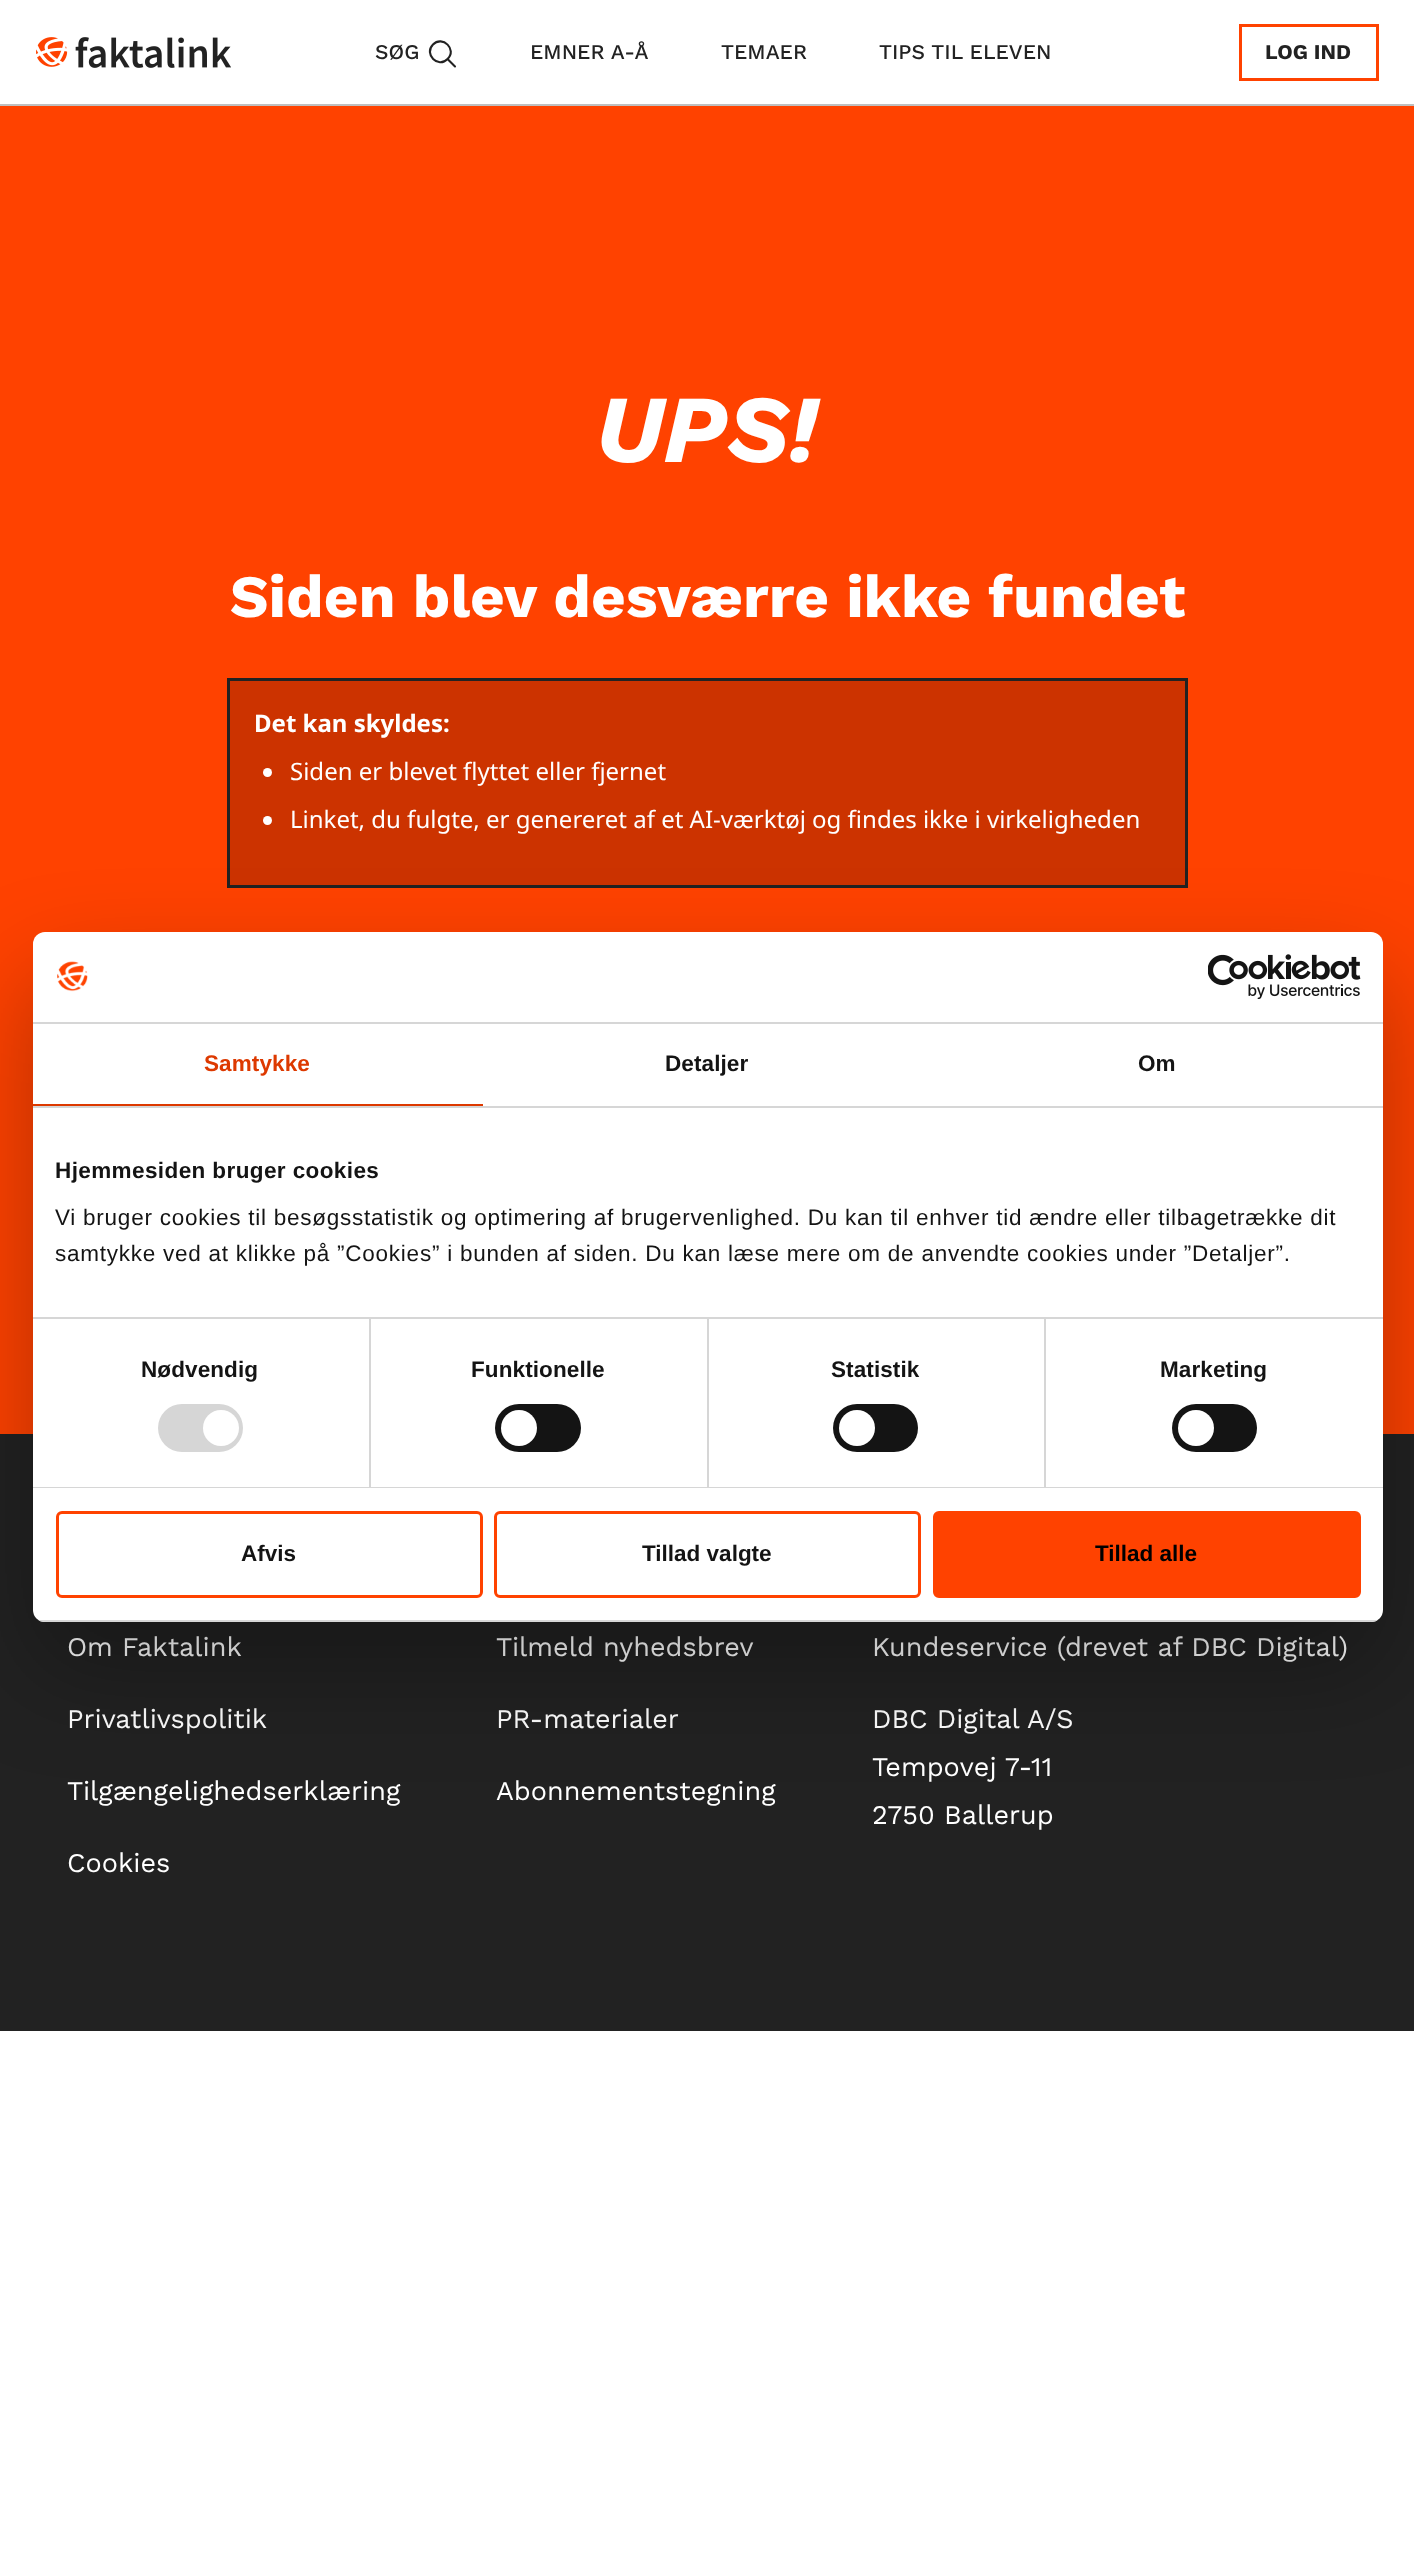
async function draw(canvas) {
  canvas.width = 1414;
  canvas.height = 2553;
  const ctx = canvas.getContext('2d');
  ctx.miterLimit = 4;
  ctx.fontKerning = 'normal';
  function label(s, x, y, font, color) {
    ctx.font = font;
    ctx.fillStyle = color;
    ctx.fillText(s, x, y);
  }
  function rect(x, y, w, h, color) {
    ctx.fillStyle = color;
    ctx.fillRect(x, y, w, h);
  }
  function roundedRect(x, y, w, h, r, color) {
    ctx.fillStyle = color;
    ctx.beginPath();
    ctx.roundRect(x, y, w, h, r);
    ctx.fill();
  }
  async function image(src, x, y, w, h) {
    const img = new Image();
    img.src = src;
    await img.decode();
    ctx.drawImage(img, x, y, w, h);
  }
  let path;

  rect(0, 0, 1414, 2553, '#fff');
  rect(0, 104, 1414, 2, '#bfbfbf');
  await image('assets/img1.png', 36, 37, 195, 31);
  label('SØG', 375, 59, '500 21px Work Sans', '#222');
  path = new Path2D('M455 66.5L447.5 59M447.5 59C457.5 49.5 442.5 35 433 44.5C423.5 54 438 69 447.5 59Z');
  ctx.strokeStyle = '#222';
  ctx.lineWidth = 2.1;
  ctx.lineCap = 'round';
  ctx.lineJoin = 'round';
  ctx.stroke(path);
  label('EMNER A-Å', 530, 59, '500 21px Work Sans', '#222');
  label('TEMAER', 721, 59, '500 21px Work Sans', '#222');
  label('TIPS TIL ELEVEN', 879, 59, '500 21px Work Sans', '#222');
  ctx.strokeStyle = '#ff4200';
  ctx.lineWidth = 3;
  ctx.lineJoin = 'miter';
  ctx.strokeRect(1240.5, 25.5, 137, 54);
  label('LOG IND', 1265, 59, 'bold 21px Work Sans', '#222');
  rect(0, 106, 1414, 1328, '#ff4200');
  label('UPS!', 596, 462, 'italic bold 96px Work Sans', '#fff');
  label('Siden blev desværre ikke fundet', 230, 617, 'bold 60px Work Sans', '#fff');
  rect(230, 681, 955, 204, '#c30');
  ctx.fillStyle = '#fff';
  ctx.beginPath();
  ctx.arc(267.5, 772.5, 4.5, 0, 2 * Math.PI);
  ctx.fill();
  ctx.beginPath();
  ctx.arc(267.5, 820.5, 4.5, 0, 2 * Math.PI);
  ctx.fill();
  ctx.strokeStyle = '#222';
  ctx.strokeRect(228.5, 679.5, 958, 207);
  label('Det kan skyldes:', 254, 732, 'bold 24px Noto Sans', '#fff');
  label('Siden er blevet flyttet eller fjernet', 290, 780, '24px Noto Sans', '#fff');
  label('Linket, du fulgte, er genereret af et AI-værktøj og findes ikke i virkeligheden', 290, 828, '24px Noto Sans', '#fff');
  rect(0, 1434, 1414, 597, '#222');
  label('Om Faktalink', 67, 1656, '27px Work Sans', '#fff');
  label('Privatlivspolitik', 67, 1728, '27px Work Sans', '#fff');
  label('Tilgængelighedserklæring', 67, 1800, '27px Work Sans', '#fff');
  label('Cookies', 67, 1872, '27px Work Sans', '#fff');
  label('Tilmeld nyhedsbrev', 496, 1656, '27px Work Sans', '#fff');
  label('PR-materialer', 496, 1728, '27px Work Sans', '#fff');
  label('Abonnementstegning', 496, 1800, '27px Work Sans', '#fff');
  label('Kundeservice (drevet af DBC Digital)', 872, 1656, '27px Work Sans', '#fff');
  label('DBC Digital A/S', 872, 1728, '27px Work Sans', '#fff');
  label('Tempovej 7-11', 872, 1776, '27px Work Sans', '#fff');
  label('2750 Ballerup', 872, 1824, '27px Work Sans', '#fff');
  ctx.fillStyle = '#0000004d';
  ctx.filter = 'blur(51px)';
  ctx.beginPath();
  ctx.roundRect(33, 980, 1350, 690, 12);
  ctx.fill();
  ctx.filter = 'none';
  roundedRect(33, 932, 1350, 690, 12, '#fff');
  rect(33, 1022, 1350, 2, '#d6d6d6');
  await image('assets/img2.png', 57, 961, 31, 31);
  await image('assets/img3.png', 1208, 954, 153, 45);
  rect(33, 1106, 1350, 2, '#d6d6d6');
  rect(33, 1104, 450, 2, '#dd3900');
  ctx.letterSpacing = '0.1px';
  label('Samtykke', 204, 1071, 'bold 22.5px Liberation Sans', '#dd3900');
  label('Detaljer', 665, 1071, 'bold 22.5px Liberation Sans', '#141414');
  label('Om', 1138, 1071, 'bold 22.5px Liberation Sans', '#141414');
  rect(33, 1317, 1350, 2, '#d6d6d6');
  ctx.letterSpacing = '0.4px';
  label('Hjemmesiden bruger cookies', 55, 1178, 'bold 22.5px Liberation Sans', '#141414');
  ctx.letterSpacing = '0.75px';
  label('Vi bruger cookies til besøgsstatistik og optimering af brugervenlighed. Du kan til enhver tid ændre eller tilbagetrække dit', 55, 1225, '22.5px Liberation Sans', '#141414');
  label('samtykke ved at klikke på ”Cookies” i bunden af siden. Du kan læse mere om de anvendte cookies under ”Detaljer”.', 55, 1261, '22.5px Liberation Sans', '#141414');
  rect(33, 1487, 1350, 1, '#d6d6d6');
  rect(369, 1319, 2, 168, '#d6d6d6');
  ctx.letterSpacing = '0.1px';
  label('Nødvendig', 141, 1377, 'bold 22.5px Liberation Sans', '#141414');
  roundedRect(158, 1404, 85, 48, 24, '#d6d6d6');
  ctx.fillStyle = '#fff';
  ctx.beginPath();
  ctx.arc(221, 1428, 18, 0, 2 * Math.PI);
  ctx.fill();
  rect(707, 1319, 2, 168, '#d6d6d6');
  label('Funktionelle', 471, 1377, 'bold 22.5px Liberation Sans', '#141414');
  roundedRect(495, 1404, 86, 48, 24, '#141414');
  ctx.fillStyle = '#fff';
  ctx.beginPath();
  ctx.arc(519, 1428, 18, 0, 2 * Math.PI);
  ctx.fill();
  rect(1044, 1319, 2, 168, '#d6d6d6');
  label('Statistik', 831, 1377, 'bold 22.5px Liberation Sans', '#141414');
  roundedRect(833, 1404, 85, 48, 24, '#141414');
  ctx.fillStyle = '#fff';
  ctx.beginPath();
  ctx.arc(857, 1428, 18, 0, 2 * Math.PI);
  ctx.fill();
  label('Marketing', 1160, 1377, 'bold 22.5px Liberation Sans', '#141414');
  roundedRect(1172, 1404, 85, 48, 24, '#141414');
  ctx.fillStyle = '#fff';
  ctx.beginPath();
  ctx.arc(1196, 1428, 18, 0, 2 * Math.PI);
  ctx.fill();
  ctx.save();
  ctx.beginPath();
  ctx.roundRect(33, 932, 1350, 690, 12);
  ctx.clip();
  rect(33, 1620, 1350, 2, '#d6d6d6');
  ctx.restore();
  ctx.beginPath();
  ctx.roundRect(57.5, 1512.5, 424, 84, 4.5);
  ctx.strokeStyle = '#ff4200';
  ctx.stroke();
  ctx.letterSpacing = '0px';
  label('Afvis', 241, 1561, 'bold 22.5px Liberation Sans', '#141414');
  ctx.beginPath();
  ctx.roundRect(495.5, 1512.5, 424, 84, 4.5);
  ctx.stroke();
  label('Tillad valgte', 642, 1561, 'bold 22.5px Liberation Sans', '#141414');
  ctx.fillStyle = '#ff4200';
  ctx.beginPath();
  ctx.roundRect(934.5, 1512.5, 425, 84, 4.5);
  ctx.fill();
  ctx.stroke();
  label('Tillad alle', 1095, 1561, 'bold 22.5px Liberation Sans', '#000');
}

draw(document.querySelector('canvas'));
